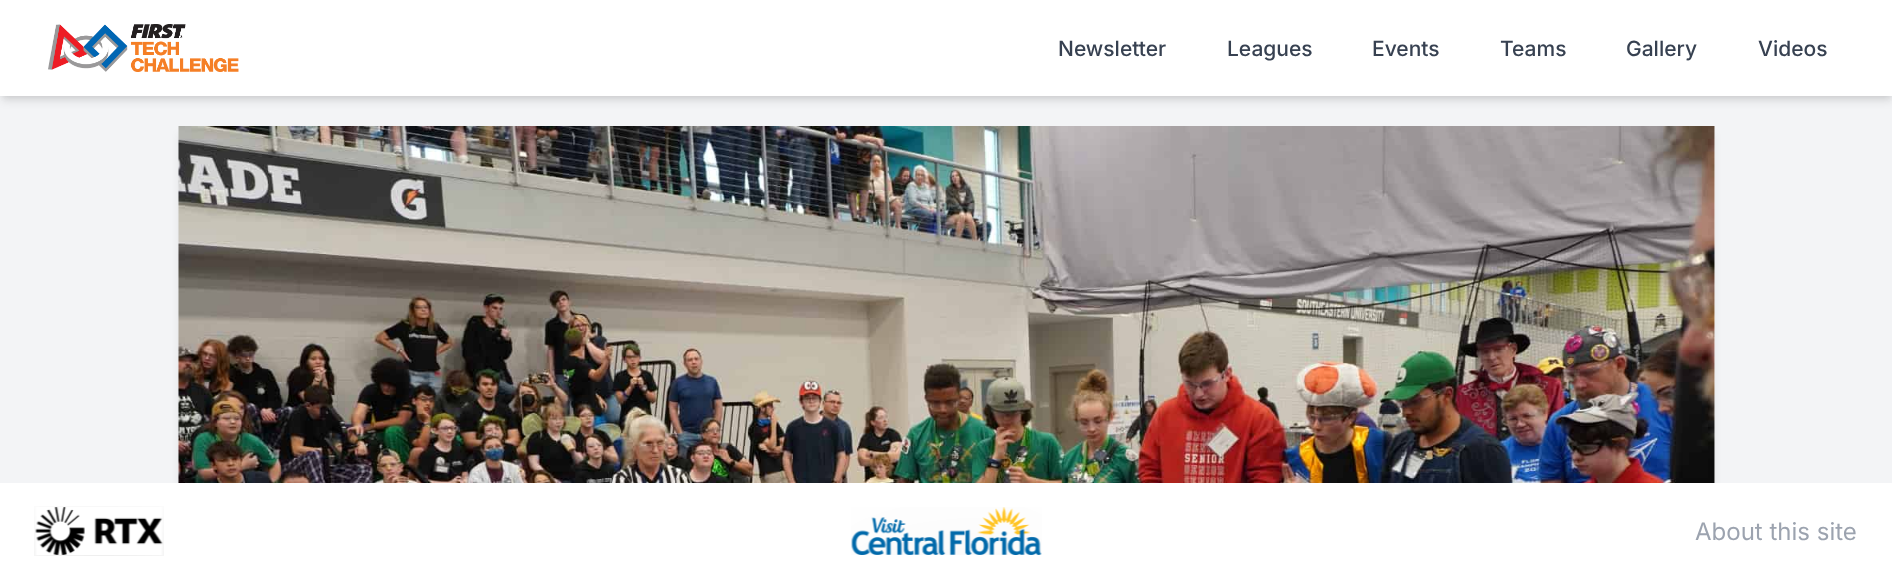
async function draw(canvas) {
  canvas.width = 1892;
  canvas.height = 578;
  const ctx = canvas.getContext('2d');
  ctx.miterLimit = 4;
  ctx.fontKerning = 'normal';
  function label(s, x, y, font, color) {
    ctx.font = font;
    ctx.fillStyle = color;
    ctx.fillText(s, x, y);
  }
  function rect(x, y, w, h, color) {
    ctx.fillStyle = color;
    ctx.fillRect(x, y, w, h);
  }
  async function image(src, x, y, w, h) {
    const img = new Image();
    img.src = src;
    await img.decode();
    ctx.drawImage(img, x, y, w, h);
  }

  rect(0, 0, 1892, 578, '#f3f4f6');
  ctx.fillStyle = '#0000001a';
  ctx.filter = 'blur(3px)';
  ctx.beginPath();
  ctx.rect(3, 6, 1887, 90);
  ctx.fill();
  ctx.filter = 'none';
  ctx.filter = 'blur(4.5px)';
  ctx.beginPath();
  ctx.rect(2, 8, 1890, 93);
  ctx.fill();
  ctx.filter = 'none';
  rect(0, 0, 1892, 96, '#fff');
  await image('assets/img1.png', 48, 24, 191, 48);
  label('Newsletter', 1058, 56, '500 21px Inter', '#374151');
  label('Leagues', 1227, 56, '500 21px Inter', '#374151');
  label('Events', 1372, 56, '500 21px Inter', '#374151');
  label('Teams', 1500, 56, '500 21px Inter', '#374151');
  label('Gallery', 1626, 56, '500 21px Inter', '#374151');
  label('Videos', 1758, 56, '500 21px Inter', '#374151');
  ctx.fillStyle = '#0000001a';
  ctx.filter = 'blur(4.5px)';
  ctx.beginPath();
  ctx.rect(180, 134, 1533, 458);
  ctx.fill();
  ctx.filter = 'none';
  rect(1714, 126, 1, 357, '#fff');
  await image('assets/img2.png', 178, 126, 1537, 357);
  rect(0, 483, 1892, 95, '#fff');
  await image('assets/img3.png', 34, 506, 130, 50);
  await image('assets/img4.png', 851, 507, 191, 48);
  label('About this site', 1695, 540, '24px Inter', '#9ca3af');
}

draw(document.querySelector('canvas'));
